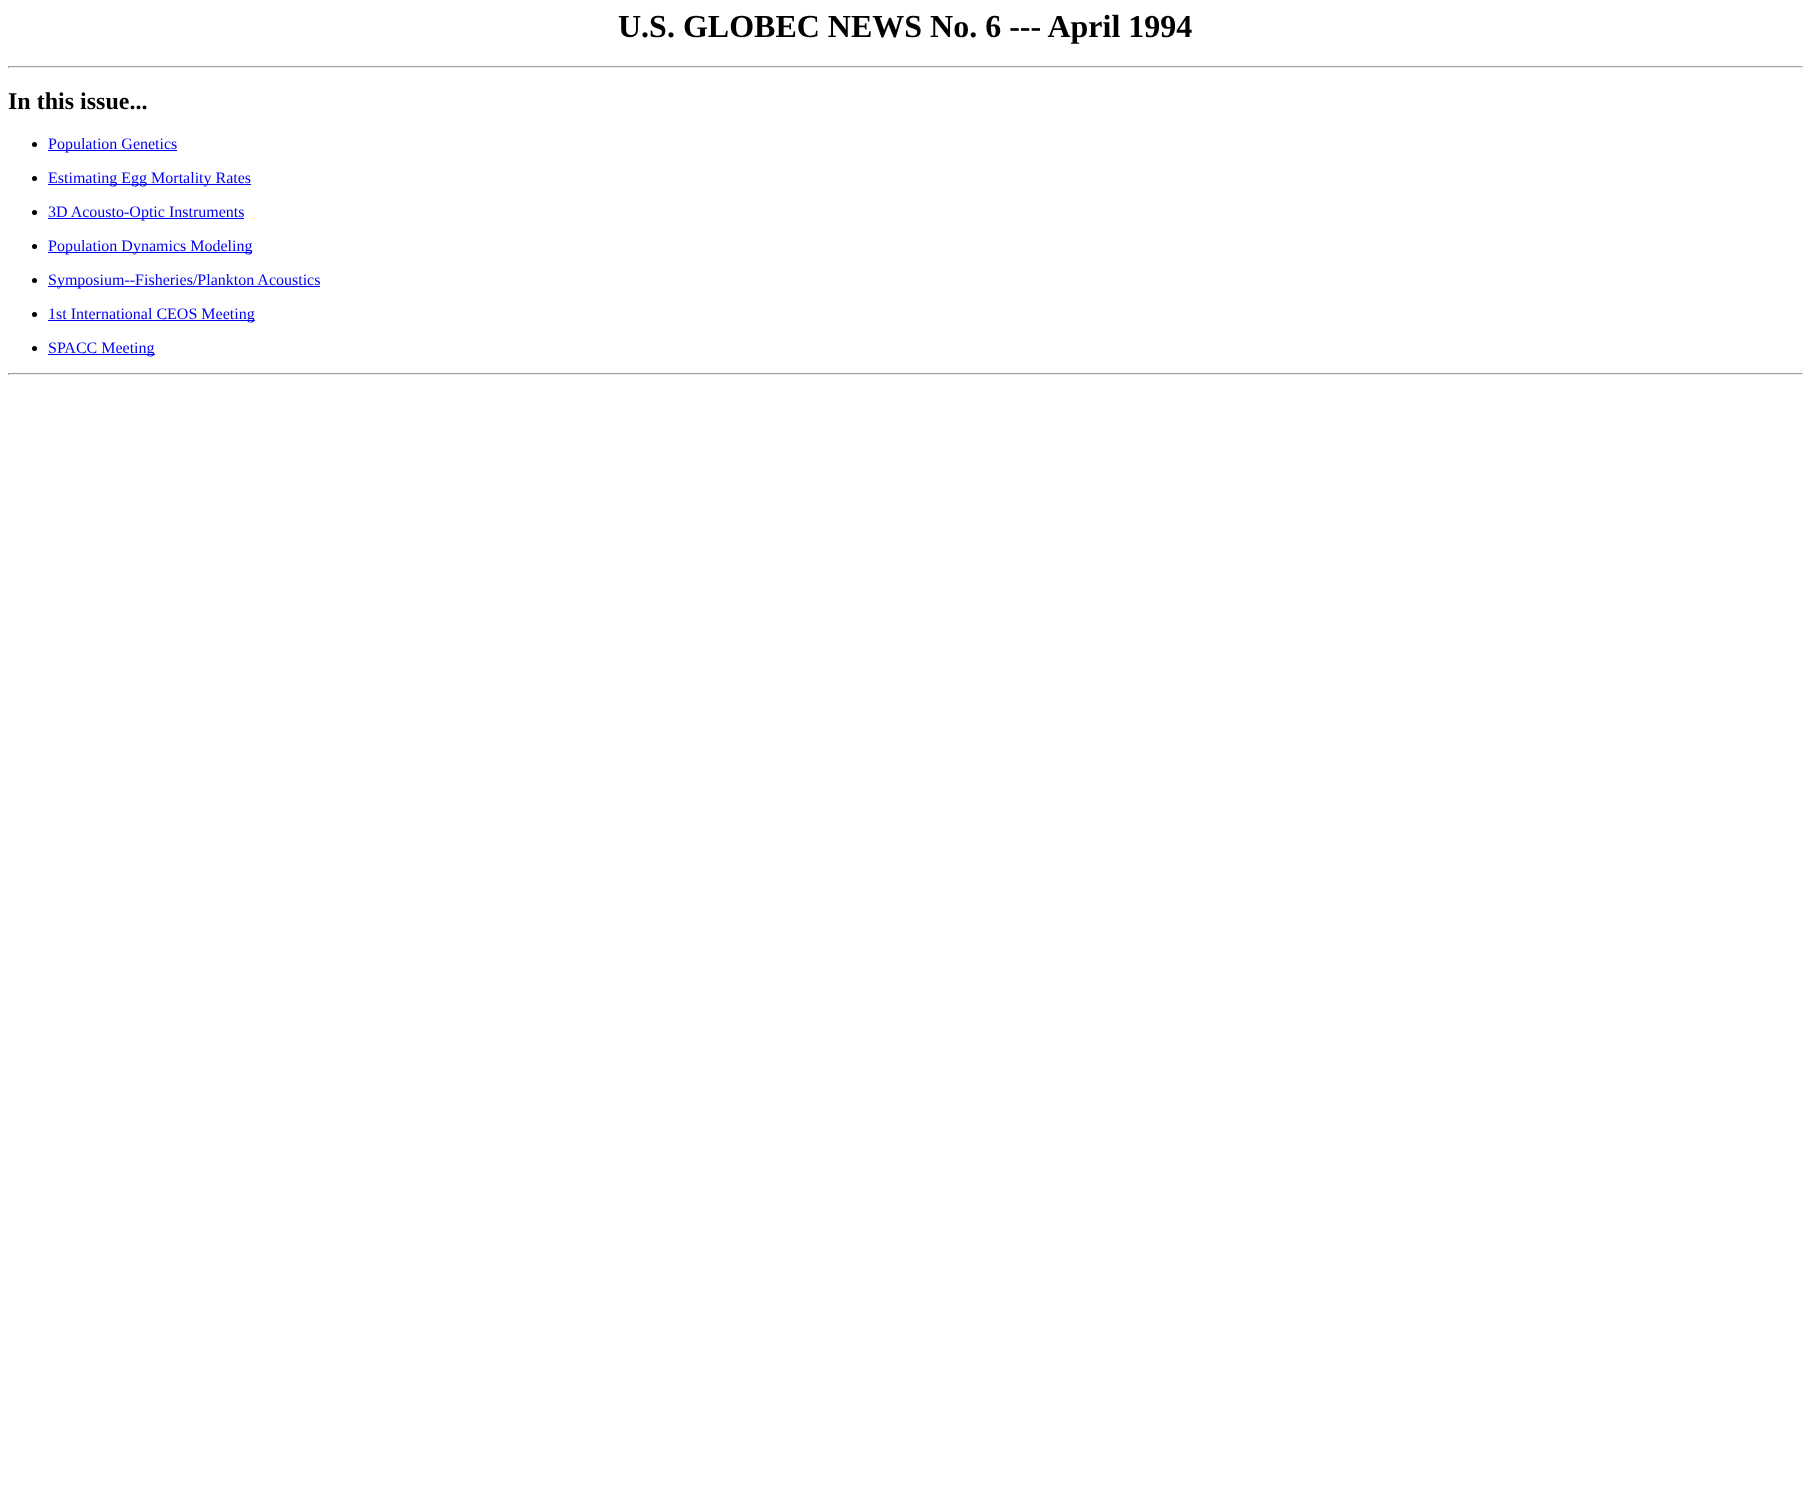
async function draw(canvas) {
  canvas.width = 1811;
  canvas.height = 1486;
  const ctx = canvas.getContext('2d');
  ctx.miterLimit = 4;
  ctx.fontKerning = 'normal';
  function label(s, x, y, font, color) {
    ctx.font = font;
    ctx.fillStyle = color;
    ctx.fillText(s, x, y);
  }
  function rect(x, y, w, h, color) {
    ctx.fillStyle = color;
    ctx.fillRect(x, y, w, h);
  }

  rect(0, 0, 1811, 1486, '#fff');
  label('U.S. GLOBEC NEWS No. 6 --- April 1994', 618, 37, 'bold 32px Liberation Serif', '#000');
  rect(8, 66, 1795, 1, '#9f9f9f');
  rect(1802, 66, 1, 2, '#eee');
  rect(8, 67, 1795, 1, '#eee');
  rect(8, 66, 1, 2, '#9f9f9f');
  label('In this issue...', 8, 109, 'bold 24px Liberation Serif', '#000');
  ctx.beginPath();
  ctx.arc(34.5, 144.5, 2.5, 0, 2 * Math.PI);
  ctx.fill();
  rect(48, 150, 129, 1, '#00e');
  label('Population Genetics', 48, 149, '16px Liberation Serif', '#00e');
  ctx.fillStyle = '#000';
  ctx.beginPath();
  ctx.arc(34.5, 178.5, 2.5, 0, 2 * Math.PI);
  ctx.fill();
  rect(48, 184, 203, 1, '#00e');
  label('Estimating Egg Mortality Rates', 48, 183, '16px Liberation Serif', '#00e');
  ctx.fillStyle = '#000';
  ctx.beginPath();
  ctx.arc(34.5, 212.5, 2.5, 0, 2 * Math.PI);
  ctx.fill();
  rect(48, 218, 196, 1, '#00e');
  label('3D Acousto-Optic Instruments', 48, 217, '16px Liberation Serif', '#00e');
  ctx.fillStyle = '#000';
  ctx.beginPath();
  ctx.arc(34.5, 246.5, 2.5, 0, 2 * Math.PI);
  ctx.fill();
  rect(48, 252, 204, 1, '#00e');
  label('Population Dynamics Modeling', 48, 251, '16px Liberation Serif', '#00e');
  ctx.fillStyle = '#000';
  ctx.beginPath();
  ctx.arc(34.5, 280.5, 2.5, 0, 2 * Math.PI);
  ctx.fill();
  rect(48, 286, 272, 1, '#00e');
  label('Symposium--Fisheries/Plankton Acoustics', 48, 285, '16px Liberation Serif', '#00e');
  ctx.fillStyle = '#000';
  ctx.beginPath();
  ctx.arc(34.5, 314.5, 2.5, 0, 2 * Math.PI);
  ctx.fill();
  rect(48, 320, 207, 1, '#00e');
  label('1st International CEOS Meeting', 48, 319, '16px Liberation Serif', '#00e');
  ctx.fillStyle = '#000';
  ctx.beginPath();
  ctx.arc(34.5, 348.5, 2.5, 0, 2 * Math.PI);
  ctx.fill();
  rect(48, 354, 107, 1, '#00e');
  label('SPACC Meeting', 48, 353, '16px Liberation Serif', '#00e');
  rect(8, 373, 1795, 1, '#9f9f9f');
  rect(1802, 373, 1, 2, '#eee');
  rect(8, 374, 1795, 1, '#eee');
  rect(8, 373, 1, 2, '#9f9f9f');
}

draw(document.querySelector('canvas'));
